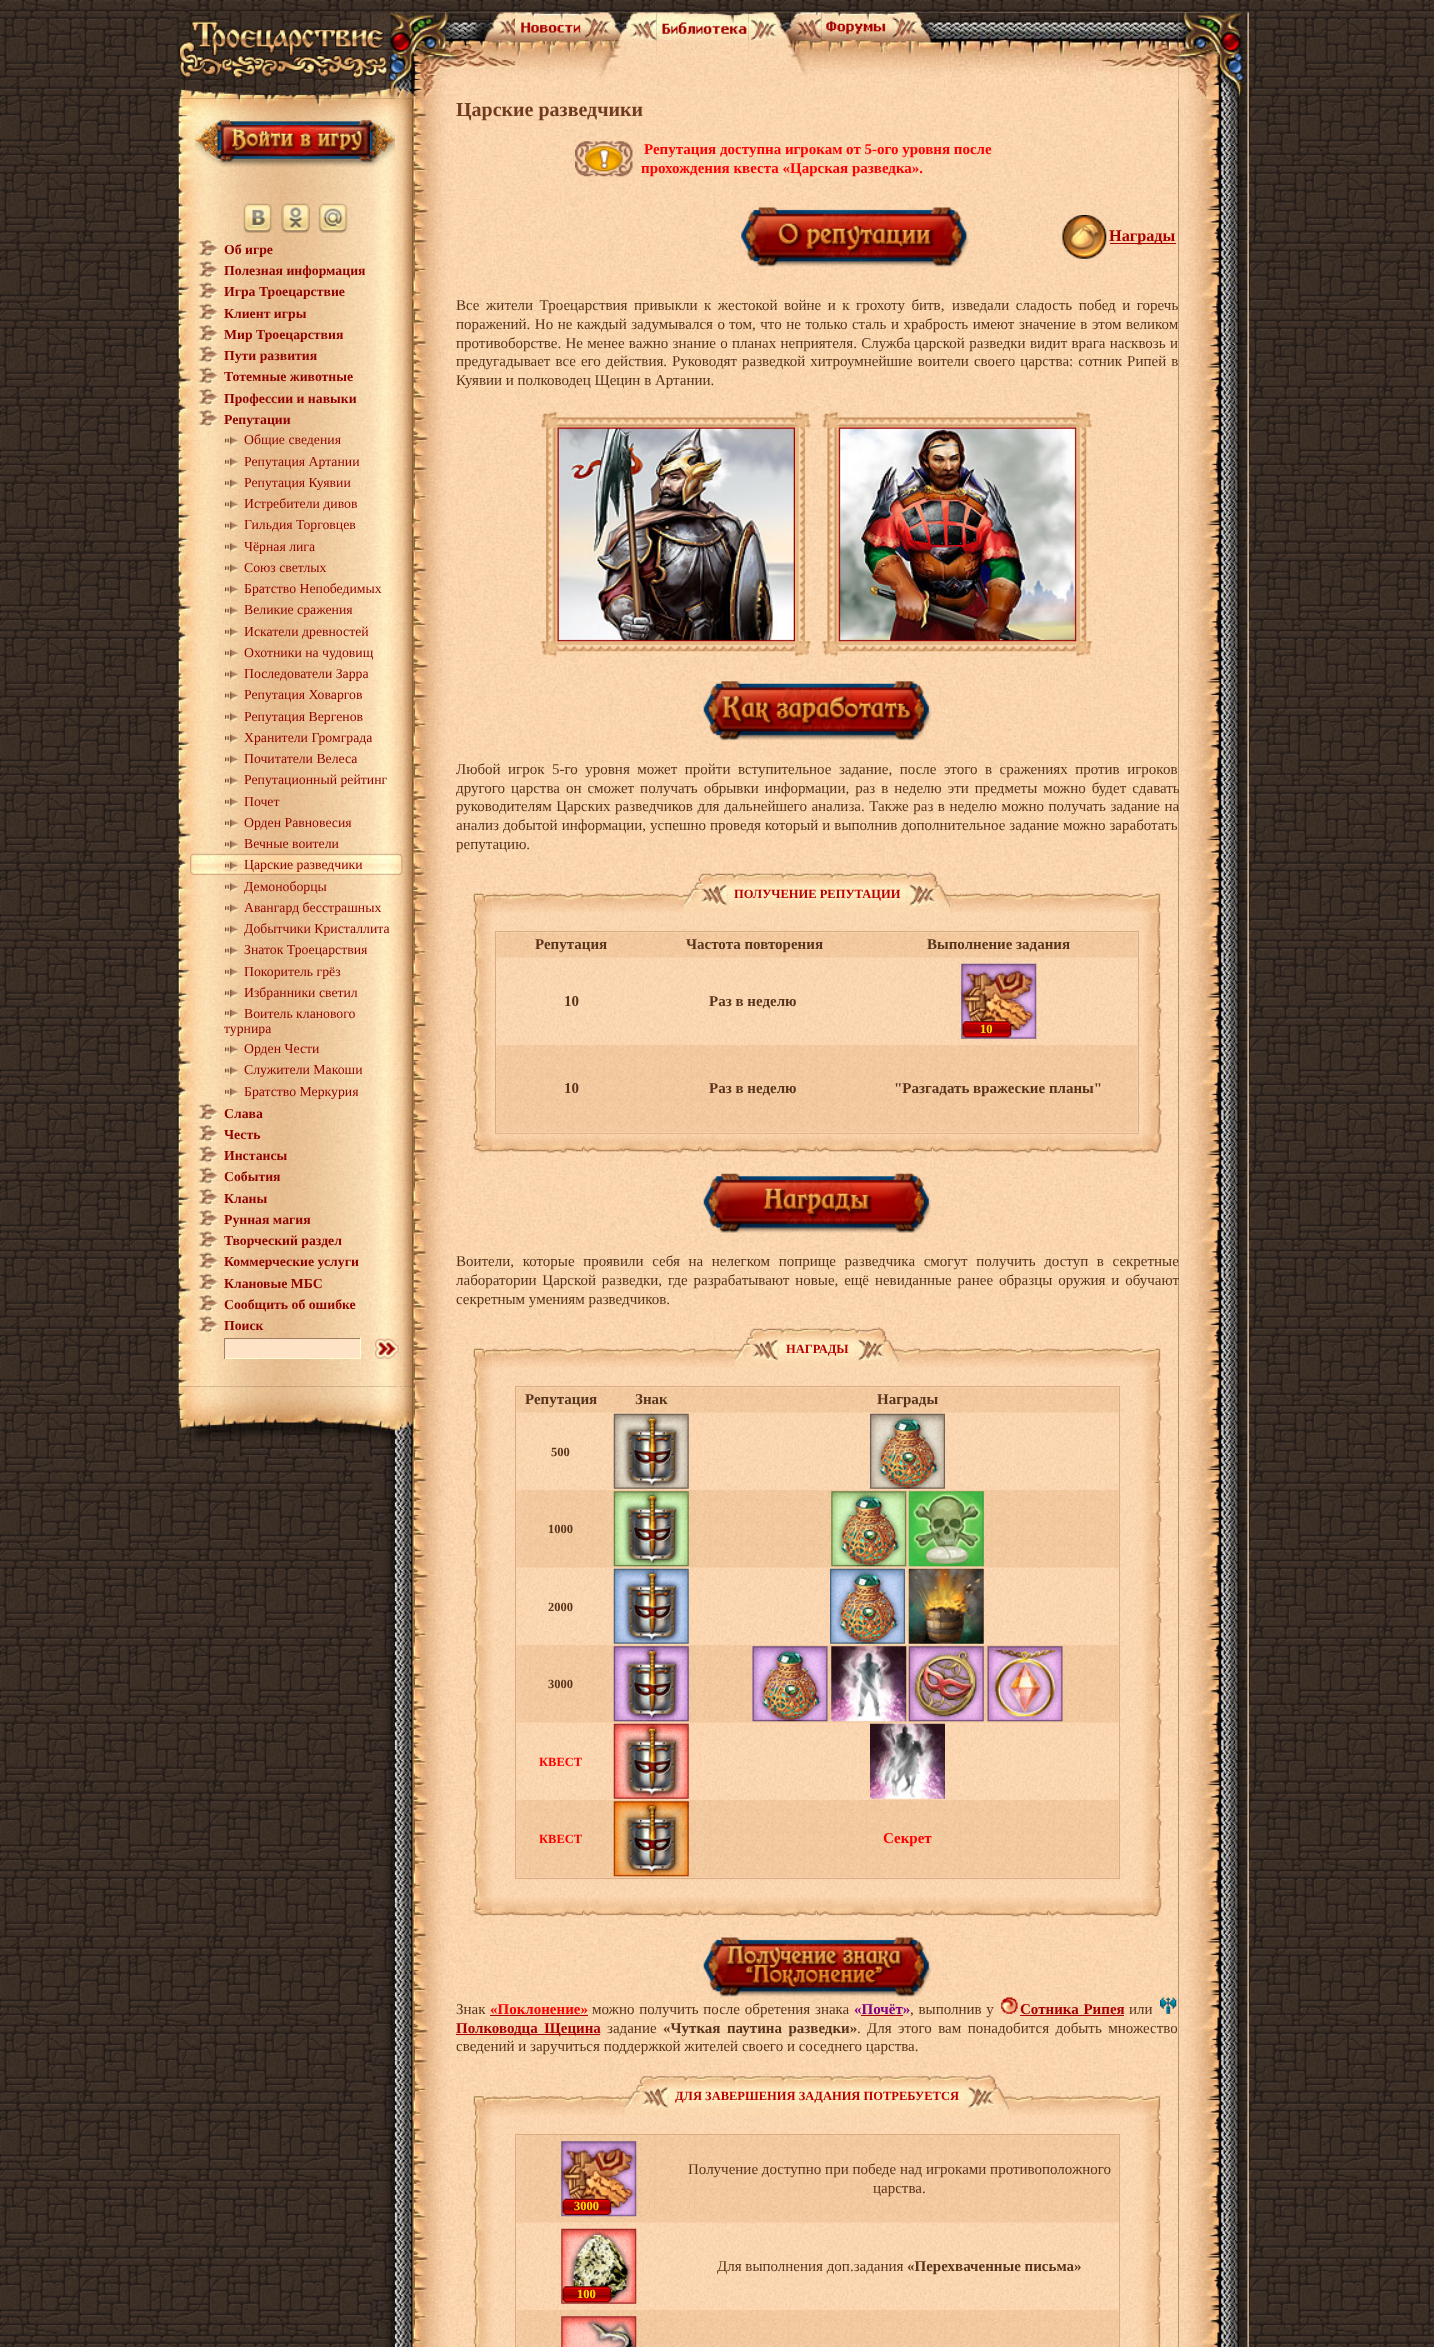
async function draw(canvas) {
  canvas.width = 1434;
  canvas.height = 2347;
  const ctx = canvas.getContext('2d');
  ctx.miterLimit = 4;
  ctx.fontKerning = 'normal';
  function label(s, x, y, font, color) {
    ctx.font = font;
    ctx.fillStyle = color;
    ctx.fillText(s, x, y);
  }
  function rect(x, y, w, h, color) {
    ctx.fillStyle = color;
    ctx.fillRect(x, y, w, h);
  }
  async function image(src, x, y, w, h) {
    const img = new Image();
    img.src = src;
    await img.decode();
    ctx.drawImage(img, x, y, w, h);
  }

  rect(0, 0, 1434, 2347, '#fff');
  await image('assets/img1.png', 0, 0, 1434, 2347);
  await image('assets/img2.png', 372, 12, 41, 2335);
  await image('assets/img4.png', 178, 98, 235, 97);
  await image('assets/img6.png', 178, 195, 235, 1192);
  await image('assets/img64.png', 412, 12, 767, 2335);
  await image('assets/img65.png', 412, 12, 767, 87);
  await image('assets/img3.png', 178, 12, 235, 87);
  await image('assets/img5.png', 195, 119, 200, 48);
  await image('assets/img7.png', 243, 203, 30, 30);
  await image('assets/img8.png', 281, 203, 29, 30);
  await image('assets/img9.png', 318, 203, 30, 30);
  await image('assets/img10.png', 197, 240, 21, 17);
  label('Об игре', 224, 254, 'bold 13.75px Liberation Serif', '#8f0000');
  await image('assets/img11.png', 197, 261, 21, 17);
  label('Полезная информация', 224, 275, 'bold 13.75px Liberation Serif', '#8f0000');
  await image('assets/img12.png', 197, 282, 21, 17);
  label('Игра Троецарствие', 224, 296, 'bold 13.75px Liberation Serif', '#8f0000');
  await image('assets/img13.png', 198, 303, 20, 17);
  label('Клиент игры', 224, 318, 'bold 13.75px Liberation Serif', '#8f0000');
  await image('assets/img14.png', 198, 325, 20, 17);
  label('Мир Троецарствия', 224, 339, 'bold 13.75px Liberation Serif', '#8f0000');
  await image('assets/img15.png', 198, 346, 20, 17);
  label('Пути развития', 224, 360, 'bold 13.75px Liberation Serif', '#8f0000');
  await image('assets/img16.png', 197, 367, 21, 17);
  label('Тотемные животные', 224, 381, 'bold 13.75px Liberation Serif', '#8f0000');
  await image('assets/img17.png', 198, 388, 20, 17);
  label('Профессии и навыки', 224, 403, 'bold 13.75px Liberation Serif', '#8f0000');
  await image('assets/img18.png', 197, 410, 21, 17);
  label('Репутации', 224, 424, 'bold 13.75px Liberation Serif', '#8f0000');
  await image('assets/img19.png', 225, 436, 13, 10);
  label('Общие сведения', 244, 444, '13.75px Liberation Serif', '#8f0000');
  await image('assets/img20.png', 225, 457, 13, 11);
  label('Репутация Артании', 244, 466, '13.75px Liberation Serif', '#8f0000');
  await image('assets/img21.png', 225, 478, 13, 11);
  label('Репутация Куявии', 244, 487, '13.75px Liberation Serif', '#8f0000');
  await image('assets/img22.png', 225, 500, 13, 10);
  label('Истребители дивов', 244, 508, '13.75px Liberation Serif', '#8f0000');
  await image('assets/img23.png', 225, 521, 13, 10);
  label('Гильдия Торговцев', 244, 529, '13.75px Liberation Serif', '#8f0000');
  await image('assets/img24.png', 225, 542, 13, 11);
  label('Чёрная лига', 244, 551, '13.75px Liberation Serif', '#8f0000');
  await image('assets/img25.png', 225, 563, 13, 11);
  label('Союз светлых', 244, 572, '13.75px Liberation Serif', '#8f0000');
  await image('assets/img26.png', 225, 585, 13, 10);
  label('Братство Непобедимых', 244, 593, '13.75px Liberation Serif', '#8f0000');
  await image('assets/img27.png', 225, 606, 13, 10);
  label('Великие сражения', 244, 614, '13.75px Liberation Serif', '#8f0000');
  await image('assets/img28.png', 225, 627, 13, 11);
  label('Искатели древностей', 244, 636, '13.75px Liberation Serif', '#8f0000');
  await image('assets/img29.png', 225, 648, 13, 11);
  label('Охотники на чудовищ', 244, 657, '13.75px Liberation Serif', '#8f0000');
  await image('assets/img30.png', 225, 670, 13, 10);
  label('Последователи Зарра', 244, 678, '13.75px Liberation Serif', '#8f0000');
  await image('assets/img31.png', 225, 691, 13, 10);
  label('Репутация Ховаргов', 244, 699, '13.75px Liberation Serif', '#8f0000');
  await image('assets/img32.png', 225, 712, 13, 11);
  label('Репутация Вергенов', 244, 721, '13.75px Liberation Serif', '#8f0000');
  await image('assets/img33.png', 225, 733, 13, 11);
  label('Хранители Громграда', 244, 742, '13.75px Liberation Serif', '#8f0000');
  await image('assets/img34.png', 225, 755, 13, 10);
  label('Почитатели Велеса', 244, 763, '13.75px Liberation Serif', '#8f0000');
  await image('assets/img35.png', 225, 776, 13, 10);
  label('Репутационный рейтинг', 244, 784, '13.75px Liberation Serif', '#8f0000');
  await image('assets/img36.png', 225, 797, 13, 11);
  label('Почет', 244, 806, '13.75px Liberation Serif', '#8f0000');
  await image('assets/img37.png', 225, 818, 13, 11);
  label('Орден Равновесия', 244, 827, '13.75px Liberation Serif', '#8f0000');
  await image('assets/img38.png', 225, 840, 13, 10);
  label('Вечные воители', 244, 848, '13.75px Liberation Serif', '#8f0000');
  await image('assets/img39.png', 190, 853, 213, 22);
  await image('assets/img40.png', 225, 861, 13, 11);
  label('Царские разведчики', 244, 869, '13.75px Liberation Serif', '#8f0000');
  await image('assets/img41.png', 225, 882, 13, 11);
  label('Демоноборцы', 244, 891, '13.75px Liberation Serif', '#8f0000');
  await image('assets/img42.png', 225, 903, 13, 11);
  label('Авангард бесстрашных', 244, 912, '13.75px Liberation Serif', '#8f0000');
  await image('assets/img43.png', 225, 925, 13, 10);
  label('Добытчики Кристаллита', 244, 933, '13.75px Liberation Serif', '#8f0000');
  await image('assets/img44.png', 225, 946, 13, 10);
  label('Знаток Троецарствия', 244, 954, '13.75px Liberation Serif', '#8f0000');
  await image('assets/img45.png', 225, 967, 13, 11);
  label('Покоритель грёз', 244, 976, '13.75px Liberation Serif', '#8f0000');
  await image('assets/img46.png', 225, 988, 13, 11);
  label('Избранники светил', 244, 997, '13.75px Liberation Serif', '#8f0000');
  await image('assets/img47.png', 225, 1008, 13, 11);
  label('Воитель кланового', 244, 1018, '13.75px Liberation Serif', '#8f0000');
  label('турнира', 224, 1033, '13.75px Liberation Serif', '#8f0000');
  await image('assets/img48.png', 225, 1045, 13, 10);
  label('Орден Чести', 244, 1053, '13.75px Liberation Serif', '#8f0000');
  await image('assets/img49.png', 225, 1066, 13, 10);
  label('Служители Макоши', 244, 1074, '13.75px Liberation Serif', '#8f0000');
  await image('assets/img50.png', 225, 1087, 13, 11);
  label('Братство Меркурия', 244, 1096, '13.75px Liberation Serif', '#8f0000');
  await image('assets/img51.png', 198, 1103, 20, 17);
  label('Слава', 224, 1118, 'bold 13.75px Liberation Serif', '#8f0000');
  await image('assets/img52.png', 198, 1125, 20, 17);
  label('Честь', 224, 1139, 'bold 13.75px Liberation Serif', '#8f0000');
  await image('assets/img53.png', 197, 1146, 21, 17);
  label('Инстансы', 224, 1160, 'bold 13.75px Liberation Serif', '#8f0000');
  await image('assets/img54.png', 198, 1167, 20, 17);
  label('События', 224, 1181, 'bold 13.75px Liberation Serif', '#8f0000');
  await image('assets/img55.png', 198, 1188, 20, 17);
  label('Кланы', 224, 1203, 'bold 13.75px Liberation Serif', '#8f0000');
  await image('assets/img56.png', 198, 1210, 20, 17);
  label('Рунная магия', 224, 1224, 'bold 13.75px Liberation Serif', '#8f0000');
  await image('assets/img57.png', 197, 1231, 21, 17);
  label('Творческий раздел', 224, 1245, 'bold 13.75px Liberation Serif', '#8f0000');
  await image('assets/img58.png', 198, 1252, 20, 17);
  label('Коммерческие услуги', 224, 1266, 'bold 13.75px Liberation Serif', '#8f0000');
  await image('assets/img59.png', 198, 1273, 20, 17);
  label('Клановые МБС', 224, 1288, 'bold 13.75px Liberation Serif', '#8f0000');
  await image('assets/img60.png', 197, 1295, 21, 17);
  label('Сообщить об ошибке', 224, 1309, 'bold 13.75px Liberation Serif', '#8f0000');
  await image('assets/img61.png', 198, 1316, 20, 17);
  label('Поиск', 224, 1330, 'bold 13.75px Liberation Serif', '#8f0000');
  rect(225, 1339, 135, 19, '#ffe3c7');
  rect(224, 1338, 137, 1, '#a27f62');
  rect(360, 1338, 1, 21, '#ffffd3');
  rect(224, 1358, 137, 1, '#ffffd3');
  rect(224, 1338, 1, 21, '#a27f62');
  await image('assets/img62.png', 375, 1338, 25, 21);
  await image('assets/img63.png', 178, 1386, 235, 71);
  await image('assets/img66.png', 412, 12, 42, 87);
  await image('assets/img67.png', 453, 12, 62, 87);
  await image('assets/img68.png', 515, 12, 70, 87);
  await image('assets/img69.png', 585, 12, 72, 87);
  await image('assets/img70.png', 656, 12, 93, 87);
  await image('assets/img71.png', 748, 12, 74, 87);
  await image('assets/img72.png', 821, 12, 69, 87);
  await image('assets/img73.png', 890, 12, 60, 87);
  label('Царские разведчики', 456, 116, 'bold 20px Liberation Serif', '#703b21');
  await image('assets/img74.png', 575, 141, 58, 36);
  label('Репутация доступна игрокам от 5-ого уровня после', 644, 154, 'bold 15px Liberation Serif', '#f00');
  label('прохождения квеста «Царская разведка».', 641, 173, 'bold 15px Liberation Serif', '#f00');
  await image('assets/img75.png', 741, 207, 228, 60);
  await image('assets/img76.png', 1062, 215, 45, 44);
  rect(1110, 243, 66, 1, '#a80000');
  label('Награды', 1109, 241, 'bold 16.25px Liberation Serif', '#a80000');
  ctx.wordSpacing = '2.75px';
  label('Все жители Троецарствия привыкли к жестокой войне и к грохоту битв,', 456, 310, '15px Liberation Serif', '#58341c');
  label('изведали сладость побед и горечь', 952, 310, '15px Liberation Serif', '#58341c');
  ctx.wordSpacing = '0.75px';
  label('поражений. Но не каждый задумывался о', 456, 329, '15px Liberation Serif', '#58341c');
  label('том, что не только сталь и храбрость имеют значение в этом великом', 729, 329, '15px Liberation Serif', '#58341c');
  ctx.wordSpacing = '0.5px';
  label('противоборстве. Не менее важно знание о планах неприятеля. Служба', 456, 348, '15px Liberation Serif', '#58341c');
  label('царской разведки видит врага насквозь и', 914, 348, '15px Liberation Serif', '#58341c');
  ctx.wordSpacing = '1.25px';
  label('предугадывает все его действия.', 456, 366, '15px Liberation Serif', '#58341c');
  label('Руководят разведкой хитроумнейшие воители своего царства: сотник Рипей в', 672, 366, '15px Liberation Serif', '#58341c');
  ctx.wordSpacing = '0px';
  label('Куявии и полководец Щецин в Артании.', 456, 385, '15px Liberation Serif', '#58341c');
  await image('assets/img77.png', 541, 411, 17, 17);
  await image('assets/img78.png', 557, 417, 238, 11);
  await image('assets/img79.png', 795, 411, 16, 17);
  await image('assets/img80.png', 546, 427, 12, 215);
  await image('assets/img83.png', 541, 641, 17, 16);
  await image('assets/img84.png', 557, 641, 238, 12);
  await image('assets/img81.png', 557, 427, 238, 215);
  await image('assets/img82.png', 795, 427, 11, 215);
  await image('assets/img85.png', 795, 641, 16, 16);
  await image('assets/img86.png', 822, 411, 17, 17);
  await image('assets/img87.png', 838, 417, 239, 11);
  await image('assets/img88.png', 1076, 411, 17, 17);
  await image('assets/img89.png', 827, 427, 12, 215);
  await image('assets/img91.png', 1076, 427, 12, 215);
  await image('assets/img92.png', 822, 641, 17, 16);
  await image('assets/img93.png', 838, 641, 239, 11);
  await image('assets/img94.png', 1076, 641, 17, 16);
  await image('assets/img90.png', 838, 427, 239, 215);
  await image('assets/img95.png', 703, 681, 228, 60);
  ctx.wordSpacing = '3.75px';
  label('Любой игрок 5-го уровня может пройти вступительное задание, после этого в сражениях против игроков', 456, 774, '15px Liberation Serif', '#58341c');
  ctx.wordSpacing = '2.25px';
  label('другого царства он сможет получать обрывки информации, раз в неделю эти предметы можно будет сдавать', 456, 793, '15px Liberation Serif', '#58341c');
  ctx.wordSpacing = '0.75px';
  label('руководителям Царских разведчиков для дальнейшего анализа. Также раз в неделю можно получать задание на', 456, 811, '15px Liberation Serif', '#58341c');
  ctx.wordSpacing = '0.25px';
  label('анализ добытой информации, успешно проведя который и выполнив дополнительное задание можно заработать', 456, 830, '15px Liberation Serif', '#58341c');
  ctx.wordSpacing = '0px';
  label('репутацию.', 456, 849, '15px Liberation Serif', '#58341c');
  await image('assets/img97.png', 492, 893, 651, 20);
  await image('assets/img102.png', 473, 912, 20, 222);
  await image('assets/img99.png', 727, 873, 180, 40);
  await image('assets/img103.png', 492, 912, 651, 222);
  await image('assets/img96.png', 473, 893, 20, 20);
  await image('assets/img98.png', 683, 873, 45, 40);
  label('ПОЛУЧЕНИЕ РЕПУТАЦИИ', 734, 898, 'bold 12.5px Liberation Serif', '#bc0000');
  await image('assets/img100.png', 906, 872, 44, 41);
  await image('assets/img112.png', 1142, 912, 20, 222);
  await image('assets/img101.png', 1142, 893, 19, 20);
  ctx.strokeStyle = '#d8ad83';
  ctx.strokeRect(495.5, 931.5, 643, 202);
  await image('assets/img104.png', 496, 932, 151, 26);
  label('Репутация', 535, 949, 'bold 15px Liberation Serif', '#58341c');
  await image('assets/img105.png', 646, 932, 214, 26);
  label('Частота повторения', 686, 949, 'bold 15px Liberation Serif', '#58341c');
  await image('assets/img106.png', 860, 932, 278, 26);
  label('Выполнение задания', 927, 949, 'bold 15px Liberation Serif', '#58341c');
  label('10', 564, 1006, 'bold 15px Liberation Serif', '#58341c');
  label('Раз в неделю', 709, 1006, 'bold 15px Liberation Serif', '#58341c');
  await image('assets/img107.png', 961, 963, 76, 76);
  await image('assets/img108.png', 962, 1021, 50, 17);
  label('10', 980, 1033, 'bold 12.5px Liberation Serif', '#ffe400');
  await image('assets/img109.png', 496, 1045, 151, 88);
  label('10', 564, 1093, 'bold 15px Liberation Serif', '#58341c');
  await image('assets/img110.png', 646, 1045, 214, 88);
  label('Раз в неделю', 709, 1093, 'bold 15px Liberation Serif', '#58341c');
  await image('assets/img111.png', 860, 1045, 278, 88);
  label('"Разгадать вражеские планы"', 894, 1093, 'bold 15px Liberation Serif', '#58341c');
  await image('assets/img114.png', 492, 1133, 651, 20);
  await image('assets/img113.png', 473, 1133, 20, 20);
  await image('assets/img115.png', 1142, 1133, 20, 20);
  await image('assets/img116.png', 703, 1173, 228, 60);
  ctx.wordSpacing = '4.9px';
  label('Воители, которые проявили себя на нелегком поприще разведчика смогут получить доступ в секретные', 456, 1266, '15px Liberation Serif', '#58341c');
  ctx.wordSpacing = '2.1px';
  label('лаборатории Царской разведки, где разрабатывают новые, ещё невиданные ранее образцы оружия и обучают', 456, 1285, '15px Liberation Serif', '#58341c');
  ctx.wordSpacing = '0px';
  label('секретным умениям разведчиков.', 456, 1304, '15px Liberation Serif', '#58341c');
  await image('assets/img118.png', 492, 1348, 651, 20);
  await image('assets/img123.png', 473, 1367, 20, 531);
  await image('assets/img120.png', 778, 1328, 77, 40);
  await image('assets/img124.png', 492, 1367, 651, 531);
  await image('assets/img117.png', 473, 1348, 20, 20);
  await image('assets/img119.png', 735, 1328, 44, 40);
  label('НАГРАДЫ', 786, 1353, 'bold 12.5px Liberation Serif', '#bc0000');
  await image('assets/img121.png', 855, 1327, 44, 41);
  await image('assets/img148.png', 1142, 1367, 20, 531);
  await image('assets/img122.png', 1142, 1348, 19, 20);
  ctx.strokeRect(515.5, 1386.5, 604, 492);
  await image('assets/img125.png', 516, 1387, 91, 26);
  label('Репутация', 525, 1404, 'bold 15px Liberation Serif', '#58341c');
  await image('assets/img126.png', 606, 1387, 91, 26);
  label('Знак', 635, 1404, 'bold 15px Liberation Serif', '#58341c');
  await image('assets/img127.png', 696, 1387, 423, 26);
  label('Награды', 877, 1404, 'bold 15px Liberation Serif', '#58341c');
  label('500', 551, 1456, 'bold 12.5px Liberation Serif', '#58341c');
  await image('assets/img128.png', 613, 1413, 76, 76);
  await image('assets/img129.png', 870, 1413, 75, 76);
  await image('assets/img130.png', 516, 1490, 91, 78);
  label('1000', 548, 1533, 'bold 12.5px Liberation Serif', '#58341c');
  await image('assets/img131.png', 606, 1490, 91, 78);
  await image('assets/img132.png', 613, 1491, 76, 76);
  await image('assets/img133.png', 696, 1490, 423, 78);
  await image('assets/img134.png', 831, 1491, 76, 76);
  await image('assets/img135.png', 908, 1491, 76, 76);
  label('2000', 548, 1611, 'bold 12.5px Liberation Serif', '#58341c');
  await image('assets/img136.png', 613, 1568, 76, 76);
  await image('assets/img137.png', 830, 1568, 75, 76);
  await image('assets/img138.png', 908, 1568, 76, 76);
  await image('assets/img130.png', 516, 1645, 91, 78);
  label('3000', 548, 1688, 'bold 12.5px Liberation Serif', '#58341c');
  await image('assets/img131.png', 606, 1645, 91, 78);
  await image('assets/img139.png', 613, 1646, 76, 76);
  await image('assets/img133.png', 696, 1645, 423, 78);
  await image('assets/img140.png', 752, 1646, 76, 76);
  await image('assets/img141.png', 831, 1646, 76, 76);
  await image('assets/img142.png', 908, 1646, 76, 76);
  await image('assets/img143.png', 987, 1646, 76, 76);
  label('КВЕСТ', 539, 1766, 'bold 12.5px Liberation Serif', '#f00');
  await image('assets/img144.png', 613, 1723, 76, 76);
  await image('assets/img145.png', 870, 1723, 75, 76);
  await image('assets/img130.png', 516, 1800, 91, 78);
  label('КВЕСТ', 539, 1843, 'bold 12.5px Liberation Serif', '#f00');
  await image('assets/img146.png', 606, 1800, 91, 78);
  await image('assets/img147.png', 613, 1801, 76, 76);
  await image('assets/img133.png', 696, 1800, 423, 78);
  label('Секрет', 883, 1843, 'bold 15px Liberation Serif', '#f00');
  await image('assets/img150.png', 492, 1897, 651, 20);
  await image('assets/img149.png', 473, 1897, 20, 20);
  await image('assets/img151.png', 1142, 1897, 20, 20);
  await image('assets/img152.png', 703, 1937, 228, 60);
  label('Знак', 456, 2014, '15px Liberation Serif', '#58341c');
  label('«Поклонение»', 490, 2014, 'bold 15px Liberation Serif', '#f00');
  rect(490, 2015, 98, 1, '#a80000');
  ctx.wordSpacing = '1px';
  label('можно получить после обретения знака', 592, 2014, '15px Liberation Serif', '#58341c');
  ctx.wordSpacing = '0px';
  label('«Почёт»', 854, 2014, 'bold 15px Liberation Serif', '#800080');
  ctx.wordSpacing = '1px';
  label(', выполнив у', 910, 2014, '15px Liberation Serif', '#58341c');
  await image('assets/img153.png', 1001, 1997, 17, 17);
  label('Сотника Рипея', 1020, 2014, 'bold 15px Liberation Serif', '#a80000');
  rect(1020, 2015, 104, 1, '#a80000');
  ctx.wordSpacing = '0px';
  label('или', 1129, 2014, '15px Liberation Serif', '#58341c');
  await image('assets/img154.png', 1160, 1997, 17, 17);
  rect(861, 2015, 42, 1, '#a80000');
  rect(456, 2034, 144, 1, '#a80000');
  ctx.wordSpacing = '2.75px';
  label('Полководца Щецина', 456, 2033, 'bold 15px Liberation Serif', '#a80000');
  ctx.wordSpacing = '0px';
  label('задание', 607, 2033, '15px Liberation Serif', '#58341c');
  ctx.wordSpacing = '2.75px';
  label('«Чуткая паутина разведки»', 663, 2033, 'bold 15px Liberation Serif', '#58341c');
  ctx.wordSpacing = '0px';
  label('.', 857, 2033, '15px Liberation Serif', '#58341c');
  ctx.wordSpacing = '2.75px';
  label('Для этого вам понадобится добыть множество', 867, 2033, '15px Liberation Serif', '#58341c');
  ctx.wordSpacing = '0px';
  label('сведений и заручиться поддержкой жителей своего и соседнего царства.', 456, 2051, '15px Liberation Serif', '#58341c');
  await image('assets/img156.png', 492, 2096, 651, 19);
  await image('assets/img155.png', 473, 2096, 20, 19);
  await image('assets/img158.png', 668, 2076, 297, 39);
  await image('assets/img157.png', 625, 2076, 44, 39);
  label('ДЛЯ ЗАВЕРШЕНИЯ ЗАДАНИЯ ПОТРЕБУЕТСЯ', 675, 2100, 'bold 12.5px Liberation Serif', '#bc0000');
  await image('assets/img159.png', 965, 2075, 44, 40);
  await image('assets/img160.png', 1142, 2096, 19, 19);
  await image('assets/img161.png', 473, 2115, 20, 232);
  await image('assets/img162.png', 492, 2115, 651, 232);
  ctx.strokeRect(515.5, 2134.5, 604, 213);
  await image('assets/img164.png', 516, 2135, 166, 88);
  await image('assets/img163.png', 681, 2135, 438, 88);
  label('Получение доступно при победе над игроками противоположного', 688, 2174, '15px Liberation Serif', '#58341c');
  label('царства.', 873, 2193, '15px Liberation Serif', '#58341c');
  await image('assets/img165.png', 561, 2141, 76, 76);
  await image('assets/img166.png', 562, 2198, 50, 17);
  label('3000', 574, 2210, 'bold 12.5px Liberation Serif', '#ffe400');
  label('Для выполнения доп.задания', 717, 2271, '15px Liberation Serif', '#58341c');
  label('«Перехваченные письма»', 907, 2271, 'bold 15px Liberation Serif', '#58341c');
  await image('assets/img167.png', 561, 2228, 76, 76);
  await image('assets/img168.png', 562, 2286, 50, 17);
  label('100', 577, 2298, 'bold 12.5px Liberation Serif', '#ffe400');
  await image('assets/img169.png', 516, 2310, 166, 37);
  await image('assets/img170.png', 561, 2316, 76, 31);
  await image('assets/img171.png', 681, 2310, 438, 37);
  await image('assets/img172.png', 1142, 2115, 20, 232);
  await image('assets/img173.png', 1178, 12, 71, 2335);
  await image('assets/img174.png', 1178, 12, 67, 87);
}

draw(document.querySelector('canvas'));
